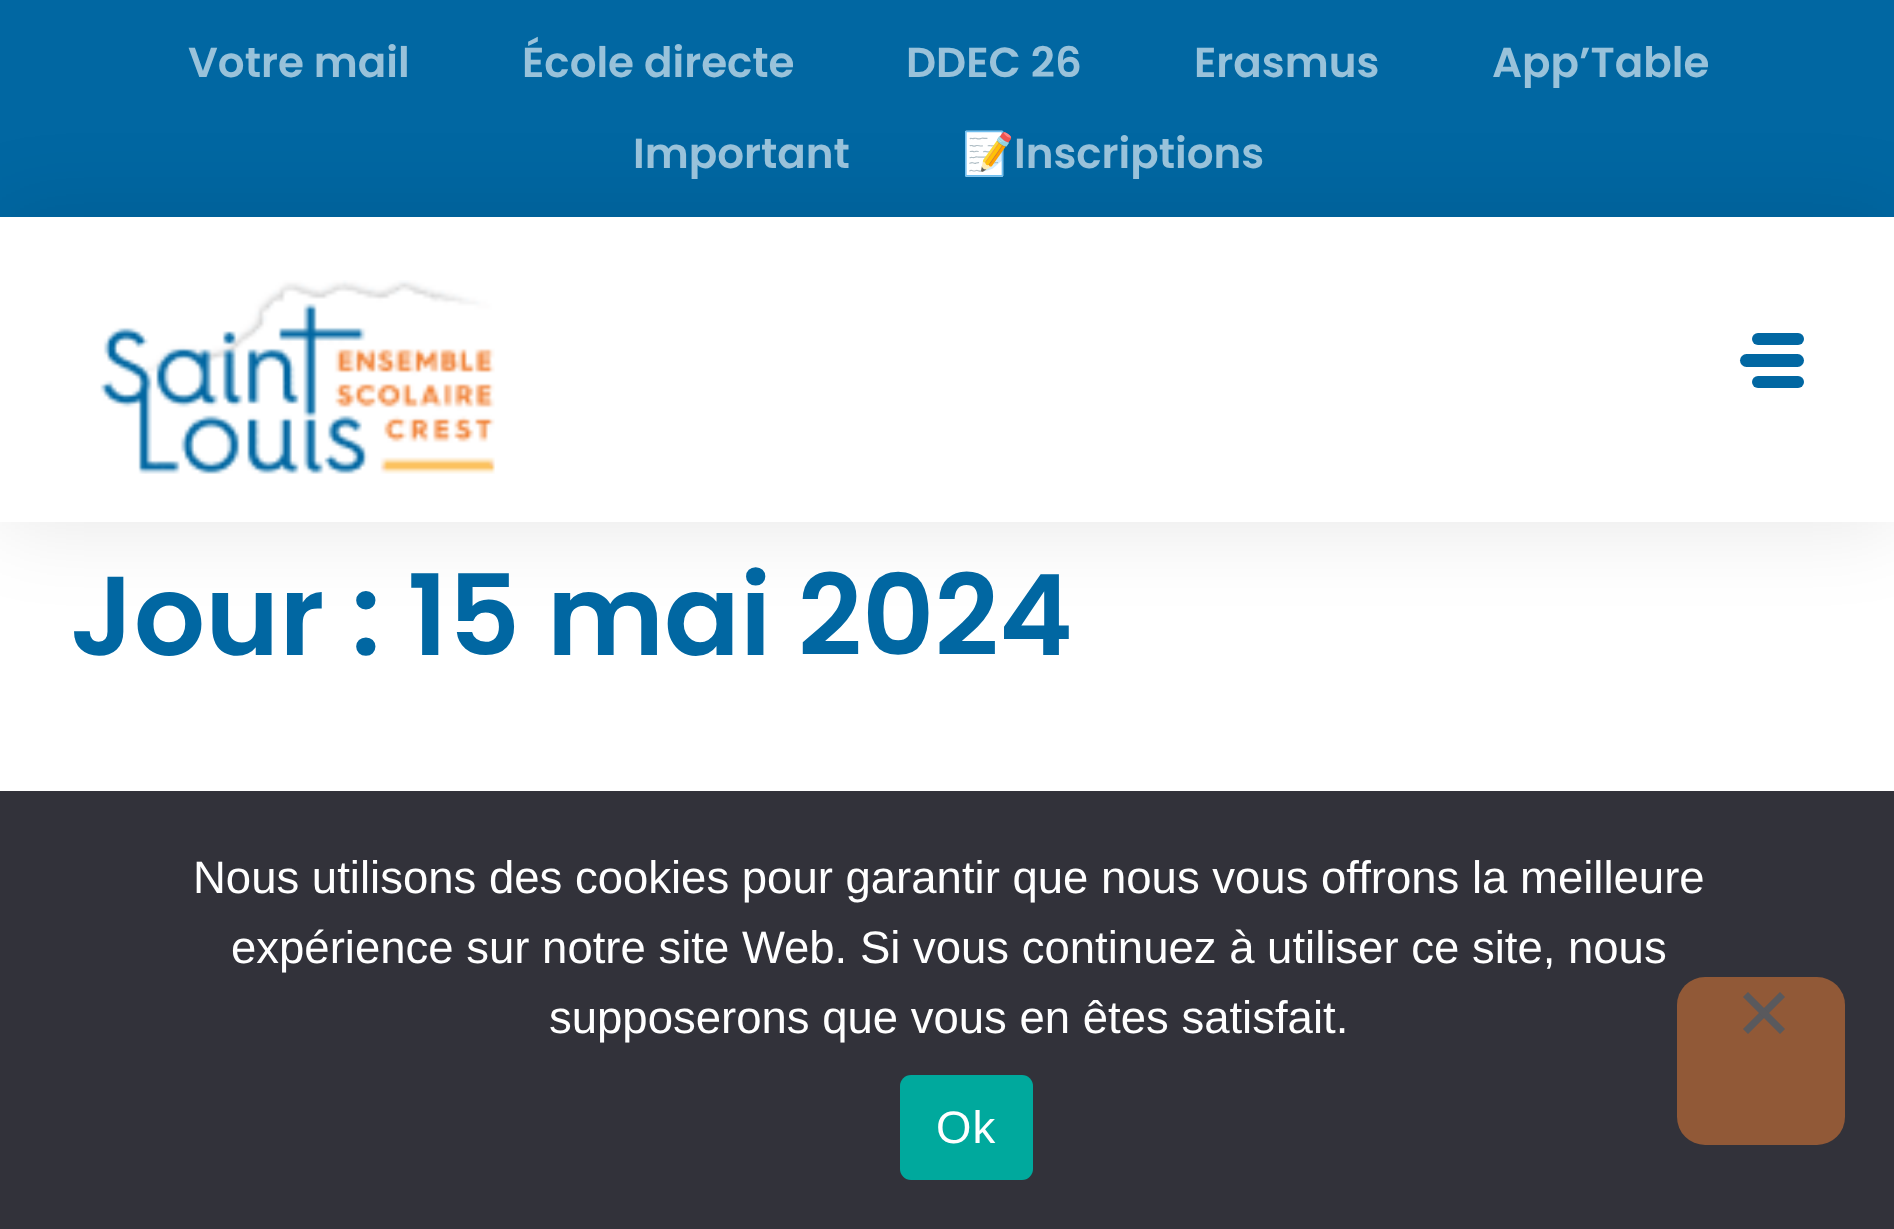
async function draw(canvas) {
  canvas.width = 1894;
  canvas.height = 1229;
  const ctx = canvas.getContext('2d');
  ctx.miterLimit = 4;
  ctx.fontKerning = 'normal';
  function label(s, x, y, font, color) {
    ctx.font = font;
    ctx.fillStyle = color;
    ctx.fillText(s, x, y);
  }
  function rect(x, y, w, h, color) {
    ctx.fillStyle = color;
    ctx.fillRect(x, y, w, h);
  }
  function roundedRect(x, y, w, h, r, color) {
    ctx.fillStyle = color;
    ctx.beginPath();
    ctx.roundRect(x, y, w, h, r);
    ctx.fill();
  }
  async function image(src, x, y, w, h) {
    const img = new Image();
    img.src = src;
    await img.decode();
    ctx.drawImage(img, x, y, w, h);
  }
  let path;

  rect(0, 0, 1894, 1229, '#fff');
  rect(0, 0, 1894, 217, '#0167a2');
  label('Votre mail', 188, 77, '600 42px Poppins', '#99c2da');
  label('École directe', 522, 77, '600 42px Poppins', '#99c2da');
  label('DDEC 26', 906, 77, '600 42px Poppins', '#99c2da');
  label('Erasmus', 1194, 77, '600 42px Poppins', '#99c2da');
  ctx.fillStyle = '#0000001a';
  ctx.filter = 'blur(44px)';
  ctx.beginPath();
  ctx.rect(0, 217, 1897, 305);
  ctx.fill();
  ctx.filter = 'none';
  label('App’Table', 1492, 77, '600 42px Poppins', '#99c2da');
  label('Important', 633, 168, '600 42px Poppins', '#99c2da');
  label('📝', 962, 168, 'bold 42px Noto Color Emoji', '#99c2da');
  label('Inscriptions', 1014, 168, '600 42px Poppins', '#99c2da');
  rect(0, 217, 1894, 305, '#fff');
  await image('assets/img1.png', 100, 280, 395, 194);
  roundedRect(1752, 333, 52, 12, 6, '#0167a2');
  roundedRect(1740, 354, 64, 13, 6.5, '#0167a2');
  roundedRect(1752, 376, 52, 12, 6, '#0167a2');
  label('Jour : 15 mai 2024', 70, 655, '600 112px Poppins', '#0167a2');
  rect(0, 791, 1894, 438, '#32323a');
  label('Nous utilisons des cookies pour garantir que nous vous offrons la meilleure', 193, 893, '45.5px Liberation Sans', '#fff');
  label('expérience sur notre site Web. Si vous continuez à utiliser ce site, nous', 231, 963, '45.5px Liberation Sans', '#fff');
  label('supposerons que vous en êtes satisfait.', 549, 1033, '45.5px Liberation Sans', '#fff');
  roundedRect(900, 1075, 133, 105, 11, '#00a99d');
  ctx.letterSpacing = '1px';
  label('Ok', 936, 1143, '45.5px Liberation Sans', '#fff');
  roundedRect(1677, 977, 168, 168, 28, '#915937');
  ctx.fillStyle = '#59595d';
  path = new Path2D('M1780 992L1785 997L1748 1034L1743 1029Z');
  ctx.fill(path);
  path = new Path2D('M1743 997L1748 992L1785 1029L1780 1034Z');
  ctx.fill(path);
}

draw(document.querySelector('canvas'));
